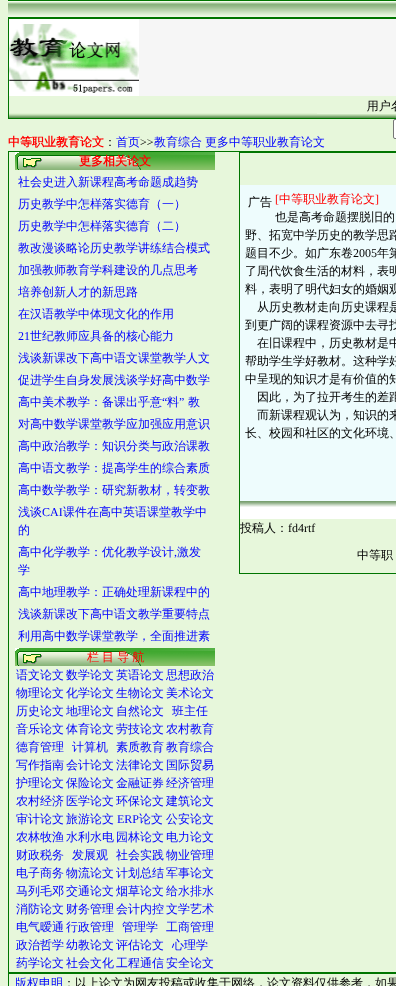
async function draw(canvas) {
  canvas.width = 396;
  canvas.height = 986;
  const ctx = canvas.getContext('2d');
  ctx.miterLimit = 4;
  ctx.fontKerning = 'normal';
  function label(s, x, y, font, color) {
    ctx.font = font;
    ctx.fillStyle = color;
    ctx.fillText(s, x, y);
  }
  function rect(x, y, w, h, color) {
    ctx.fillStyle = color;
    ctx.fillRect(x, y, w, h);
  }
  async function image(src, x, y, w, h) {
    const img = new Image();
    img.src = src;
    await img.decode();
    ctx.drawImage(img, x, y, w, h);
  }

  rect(0, 0, 396, 986, '#e7f7db');
  await image('assets/img1.png', 8, 0, 388, 18);
  rect(139, 19, 257, 77, '#f6f6f6');
  ctx.strokeStyle = '#007500';
  ctx.strokeRect(8.5, 18.5, 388, 100);
  await image('assets/img2.png', 9, 19, 130, 77);
  await image('assets/img3.png', 9, 96, 387, 22);
  await image('assets/img4.png', 317, 99, 79, 15);
  ctx.fillStyle = '#fff';
  ctx.beginPath();
  ctx.roundRect(393.5, 119.5, 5, 19, 1.5);
  ctx.fill();
  ctx.strokeStyle = '#767676';
  ctx.stroke();
  label('中等职业教育论文', 8, 146, 'bold 12px WenQuanYi Zen Hei', '#f00');
  label('：', 104, 146, '500 12px WenQuanYi Zen Hei', '#000');
  label('首页', 116, 146, '500 12px WenQuanYi Zen Hei', '#00f');
  label('>>', 140, 146, '12px Liberation Serif', '#000');
  ctx.wordSpacing = '-0.5px';
  label('教育综合 更多中等职业教育论文', 154, 146, '500 12px WenQuanYi Zen Hei', '#00f');
  ctx.strokeStyle = '#007500';
  ctx.strokeRect(8.5, 151.5, 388, 821);
  await image('assets/img5.png', 15, 152, 200, 18);
  ctx.wordSpacing = '0px';
  label('更多相关论文', 79, 165, 'bold 12px WenQuanYi Zen Hei', '#f00');
  label('社会史进入新课程高考命题成趋势', 18, 186, '500 12px WenQuanYi Zen Hei', '#00f');
  label('历史教学中怎样落实德育（一）', 18, 208, '500 12px WenQuanYi Zen Hei', '#00f');
  label('历史教学中怎样落实德育（二）', 18, 230, '500 12px WenQuanYi Zen Hei', '#00f');
  label('教改漫谈略论历史教学讲练结合模式', 18, 252, '500 12px WenQuanYi Zen Hei', '#00f');
  label('加强教师教育学科建设的几点思考', 18, 274, '500 12px WenQuanYi Zen Hei', '#00f');
  label('培养创新人才的新思路', 18, 296, '500 12px WenQuanYi Zen Hei', '#00f');
  label('在汉语教学中体现文化的作用', 18, 318, '500 12px WenQuanYi Zen Hei', '#00f');
  label('21', 18, 340, '12px Liberation Serif', '#00f');
  label('世纪教师应具备的核心能力', 30, 340, '500 12px WenQuanYi Zen Hei', '#00f');
  label('浅谈新课改下高中语文课堂教学人文', 18, 362, '500 12px WenQuanYi Zen Hei', '#00f');
  label('促进学生自身发展浅谈学好高中数学', 18, 384, '500 12px WenQuanYi Zen Hei', '#00f');
  label('高中美术教学：备课出乎意', 18, 406, '500 12px WenQuanYi Zen Hei', '#00f');
  label('“', 162, 406, '12px Liberation Serif', '#00f');
  label('料', 167, 406, '500 12px WenQuanYi Zen Hei', '#00f');
  label('”', 179, 406, '12px Liberation Serif', '#00f');
  label('教', 188, 406, '500 12px WenQuanYi Zen Hei', '#00f');
  label('对高中数学课堂教学应加强应用意识', 18, 428, '500 12px WenQuanYi Zen Hei', '#00f');
  label('高中政治教学：知识分类与政治课教', 18, 450, '500 12px WenQuanYi Zen Hei', '#00f');
  label('高中语文教学：提高学生的综合素质', 18, 472, '500 12px WenQuanYi Zen Hei', '#00f');
  label('高中数学教学：研究新教材，转变教', 18, 494, '500 12px WenQuanYi Zen Hei', '#00f');
  label('浅谈', 18, 516, '500 12px WenQuanYi Zen Hei', '#00f');
  label('CAI', 42, 516, '12px Liberation Serif', '#00f');
  label('课件在高中英语课堂教学中', 63, 516, '500 12px WenQuanYi Zen Hei', '#00f');
  label('的', 18, 534, '500 12px WenQuanYi Zen Hei', '#00f');
  label('高中化学教学：优化教学设计', 18, 556, '500 12px WenQuanYi Zen Hei', '#00f');
  label(',', 174, 556, '12px Liberation Serif', '#00f');
  label('激发', 177, 556, '500 12px WenQuanYi Zen Hei', '#00f');
  label('学', 18, 574, '500 12px WenQuanYi Zen Hei', '#00f');
  label('高中地理教学：正确处理新课程中的', 18, 596, '500 12px WenQuanYi Zen Hei', '#00f');
  label('浅谈新课改下高中语文教学重要特点', 18, 618, '500 12px WenQuanYi Zen Hei', '#00f');
  label('利用高中数学课堂教学，全面推进素', 18, 640, '500 12px WenQuanYi Zen Hei', '#00f');
  await image('assets/img5.png', 15, 648, 200, 18);
  ctx.wordSpacing = '-0.5px';
  label('栏 目 导 航', 87, 661, '500 12px WenQuanYi Zen Hei', '#f00');
  ctx.wordSpacing = '0px';
  label('语文论文', 16, 679, '500 12px WenQuanYi Zen Hei', '#00f');
  label('数学论文', 66, 679, '500 12px WenQuanYi Zen Hei', '#00f');
  label('英语论文', 116, 679, '500 12px WenQuanYi Zen Hei', '#00f');
  label('思想政治', 166, 679, '500 12px WenQuanYi Zen Hei', '#00f');
  label('物理论文', 16, 697, '500 12px WenQuanYi Zen Hei', '#00f');
  label('化学论文', 66, 697, '500 12px WenQuanYi Zen Hei', '#00f');
  label('生物论文', 116, 697, '500 12px WenQuanYi Zen Hei', '#00f');
  label('美术论文', 166, 697, '500 12px WenQuanYi Zen Hei', '#00f');
  label('历史论文', 16, 715, '500 12px WenQuanYi Zen Hei', '#00f');
  label('地理论文', 66, 715, '500 12px WenQuanYi Zen Hei', '#00f');
  label('自然论文', 116, 715, '500 12px WenQuanYi Zen Hei', '#00f');
  label('班主任', 172, 715, '500 12px WenQuanYi Zen Hei', '#00f');
  label('音乐论文', 16, 733, '500 12px WenQuanYi Zen Hei', '#00f');
  label('体育论文', 66, 733, '500 12px WenQuanYi Zen Hei', '#00f');
  label('劳技论文', 116, 733, '500 12px WenQuanYi Zen Hei', '#00f');
  label('农村教育', 166, 733, '500 12px WenQuanYi Zen Hei', '#00f');
  label('德育管理', 16, 751, '500 12px WenQuanYi Zen Hei', '#00f');
  label('计算机', 72, 751, '500 12px WenQuanYi Zen Hei', '#00f');
  label('素质教育', 116, 751, '500 12px WenQuanYi Zen Hei', '#00f');
  label('教育综合', 166, 751, '500 12px WenQuanYi Zen Hei', '#00f');
  label('写作指南', 16, 769, '500 12px WenQuanYi Zen Hei', '#00f');
  label('会计论文', 66, 769, '500 12px WenQuanYi Zen Hei', '#00f');
  label('法律论文', 116, 769, '500 12px WenQuanYi Zen Hei', '#00f');
  label('国际贸易', 166, 769, '500 12px WenQuanYi Zen Hei', '#00f');
  label('护理论文', 16, 787, '500 12px WenQuanYi Zen Hei', '#00f');
  label('保险论文', 66, 787, '500 12px WenQuanYi Zen Hei', '#00f');
  label('金融证券', 116, 787, '500 12px WenQuanYi Zen Hei', '#00f');
  label('经济管理', 166, 787, '500 12px WenQuanYi Zen Hei', '#00f');
  label('农村经济', 16, 805, '500 12px WenQuanYi Zen Hei', '#00f');
  label('医学论文', 66, 805, '500 12px WenQuanYi Zen Hei', '#00f');
  label('环保论文', 116, 805, '500 12px WenQuanYi Zen Hei', '#00f');
  label('建筑论文', 166, 805, '500 12px WenQuanYi Zen Hei', '#00f');
  label('审计论文', 16, 823, '500 12px WenQuanYi Zen Hei', '#00f');
  label('旅游论文', 66, 823, '500 12px WenQuanYi Zen Hei', '#00f');
  label('ERP', 117, 823, '12px Liberation Serif', '#00f');
  label('论文', 139, 823, '500 12px WenQuanYi Zen Hei', '#00f');
  label('公安论文', 166, 823, '500 12px WenQuanYi Zen Hei', '#00f');
  label('农林牧渔', 16, 841, '500 12px WenQuanYi Zen Hei', '#00f');
  label('水利水电', 66, 841, '500 12px WenQuanYi Zen Hei', '#00f');
  label('园林论文', 116, 841, '500 12px WenQuanYi Zen Hei', '#00f');
  label('电力论文', 166, 841, '500 12px WenQuanYi Zen Hei', '#00f');
  label('财政税务', 16, 859, '500 12px WenQuanYi Zen Hei', '#00f');
  label('发展观', 72, 859, '500 12px WenQuanYi Zen Hei', '#00f');
  label('社会实践', 116, 859, '500 12px WenQuanYi Zen Hei', '#00f');
  label('物业管理', 166, 859, '500 12px WenQuanYi Zen Hei', '#00f');
  label('电子商务', 16, 877, '500 12px WenQuanYi Zen Hei', '#00f');
  label('物流论文', 66, 877, '500 12px WenQuanYi Zen Hei', '#00f');
  label('计划总结', 116, 877, '500 12px WenQuanYi Zen Hei', '#00f');
  label('军事论文', 166, 877, '500 12px WenQuanYi Zen Hei', '#00f');
  label('马列毛邓', 16, 895, '500 12px WenQuanYi Zen Hei', '#00f');
  label('交通论文', 66, 895, '500 12px WenQuanYi Zen Hei', '#00f');
  label('烟草论文', 116, 895, '500 12px WenQuanYi Zen Hei', '#00f');
  label('给水排水', 166, 895, '500 12px WenQuanYi Zen Hei', '#00f');
  label('消防论文', 16, 913, '500 12px WenQuanYi Zen Hei', '#00f');
  label('财务管理', 66, 913, '500 12px WenQuanYi Zen Hei', '#00f');
  label('会计内控', 116, 913, '500 12px WenQuanYi Zen Hei', '#00f');
  label('文学艺术', 166, 913, '500 12px WenQuanYi Zen Hei', '#00f');
  label('电气暧通', 16, 931, '500 12px WenQuanYi Zen Hei', '#00f');
  label('行政管理', 66, 931, '500 12px WenQuanYi Zen Hei', '#00f');
  label('管理学', 122, 931, '500 12px WenQuanYi Zen Hei', '#00f');
  label('工商管理', 166, 931, '500 12px WenQuanYi Zen Hei', '#00f');
  label('政治哲学', 16, 949, '500 12px WenQuanYi Zen Hei', '#00f');
  label('幼教论文', 66, 949, '500 12px WenQuanYi Zen Hei', '#00f');
  label('评估论文', 116, 949, '500 12px WenQuanYi Zen Hei', '#00f');
  label('心理学', 172, 949, '500 12px WenQuanYi Zen Hei', '#00f');
  label('药学论文', 16, 967, '500 12px WenQuanYi Zen Hei', '#00f');
  label('社会文化', 66, 967, '500 12px WenQuanYi Zen Hei', '#00f');
  label('工程通信', 116, 967, '500 12px WenQuanYi Zen Hei', '#00f');
  label('安全论文', 166, 967, '500 12px WenQuanYi Zen Hei', '#00f');
  ctx.strokeRect(239.5, 152.5, 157, 421);
  rect(240, 185, 156, 316, '#eefcfd');
  label('广告', 248, 206, '500 12px WenQuanYi Zen Hei', '#000');
  label('[', 275, 203, '12px Liberation Serif', '#f00');
  label('中等职业教育论文', 279, 203, '500 12px WenQuanYi Zen Hei', '#f00');
  label(']', 375, 203, '12px Liberation Serif', '#f00');
  label('也是高考命题摆脱旧的', 275, 221, '500 12px WenQuanYi Zen Hei', '#000');
  label('野、拓宽中学历史的教学思路', 245, 239, '500 12px WenQuanYi Zen Hei', '#000');
  label('题目不少。如广东卷', 245, 257, '500 12px WenQuanYi Zen Hei', '#000');
  label('2005', 353, 257, '12px Liberation Serif', '#000');
  label('年第', 377, 257, '500 12px WenQuanYi Zen Hei', '#000');
  label('了周代饮食生活的材料，表明', 245, 275, '500 12px WenQuanYi Zen Hei', '#000');
  label('料，表明了明代妇女的婚姻观', 245, 293, '500 12px WenQuanYi Zen Hei', '#000');
  label('从历史教材走向历史课程是', 257, 311, '500 12px WenQuanYi Zen Hei', '#000');
  label('到更广阔的课程资源中去寻找', 245, 329, '500 12px WenQuanYi Zen Hei', '#000');
  label('在旧课程中，历史教材是中', 257, 347, '500 12px WenQuanYi Zen Hei', '#000');
  label('帮助学生学好教材。这种学好', 245, 365, '500 12px WenQuanYi Zen Hei', '#000');
  label('中呈现的知识才是有价值的知', 245, 383, '500 12px WenQuanYi Zen Hei', '#000');
  label('因此，为了拉开考生的差距', 257, 401, '500 12px WenQuanYi Zen Hei', '#000');
  label('而新课程观认为，知识的来', 257, 419, '500 12px WenQuanYi Zen Hei', '#000');
  label('长、校园和社区的文化环境、', 245, 437, '500 12px WenQuanYi Zen Hei', '#000');
  await image('assets/img6.png', 240, 501, 156, 18);
  label('投稿人：', 240, 532, '500 12px WenQuanYi Zen Hei', '#000');
  label('fd4rtf', 288, 532, '12px Liberation Serif', '#000');
  label('中等职', 357, 559, '500 12px WenQuanYi Zen Hei', '#000');
  ctx.strokeRect(8.5, 973.5, 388, 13);
  label('版权申明', 15, 987, '500 12px WenQuanYi Zen Hei', '#00f');
  label('：以上论文为网友投稿或收集于网络，论文资料仅供参考，如果', 63, 987, '500 12px WenQuanYi Zen Hei', '#000');
}

draw(document.querySelector('canvas'));
